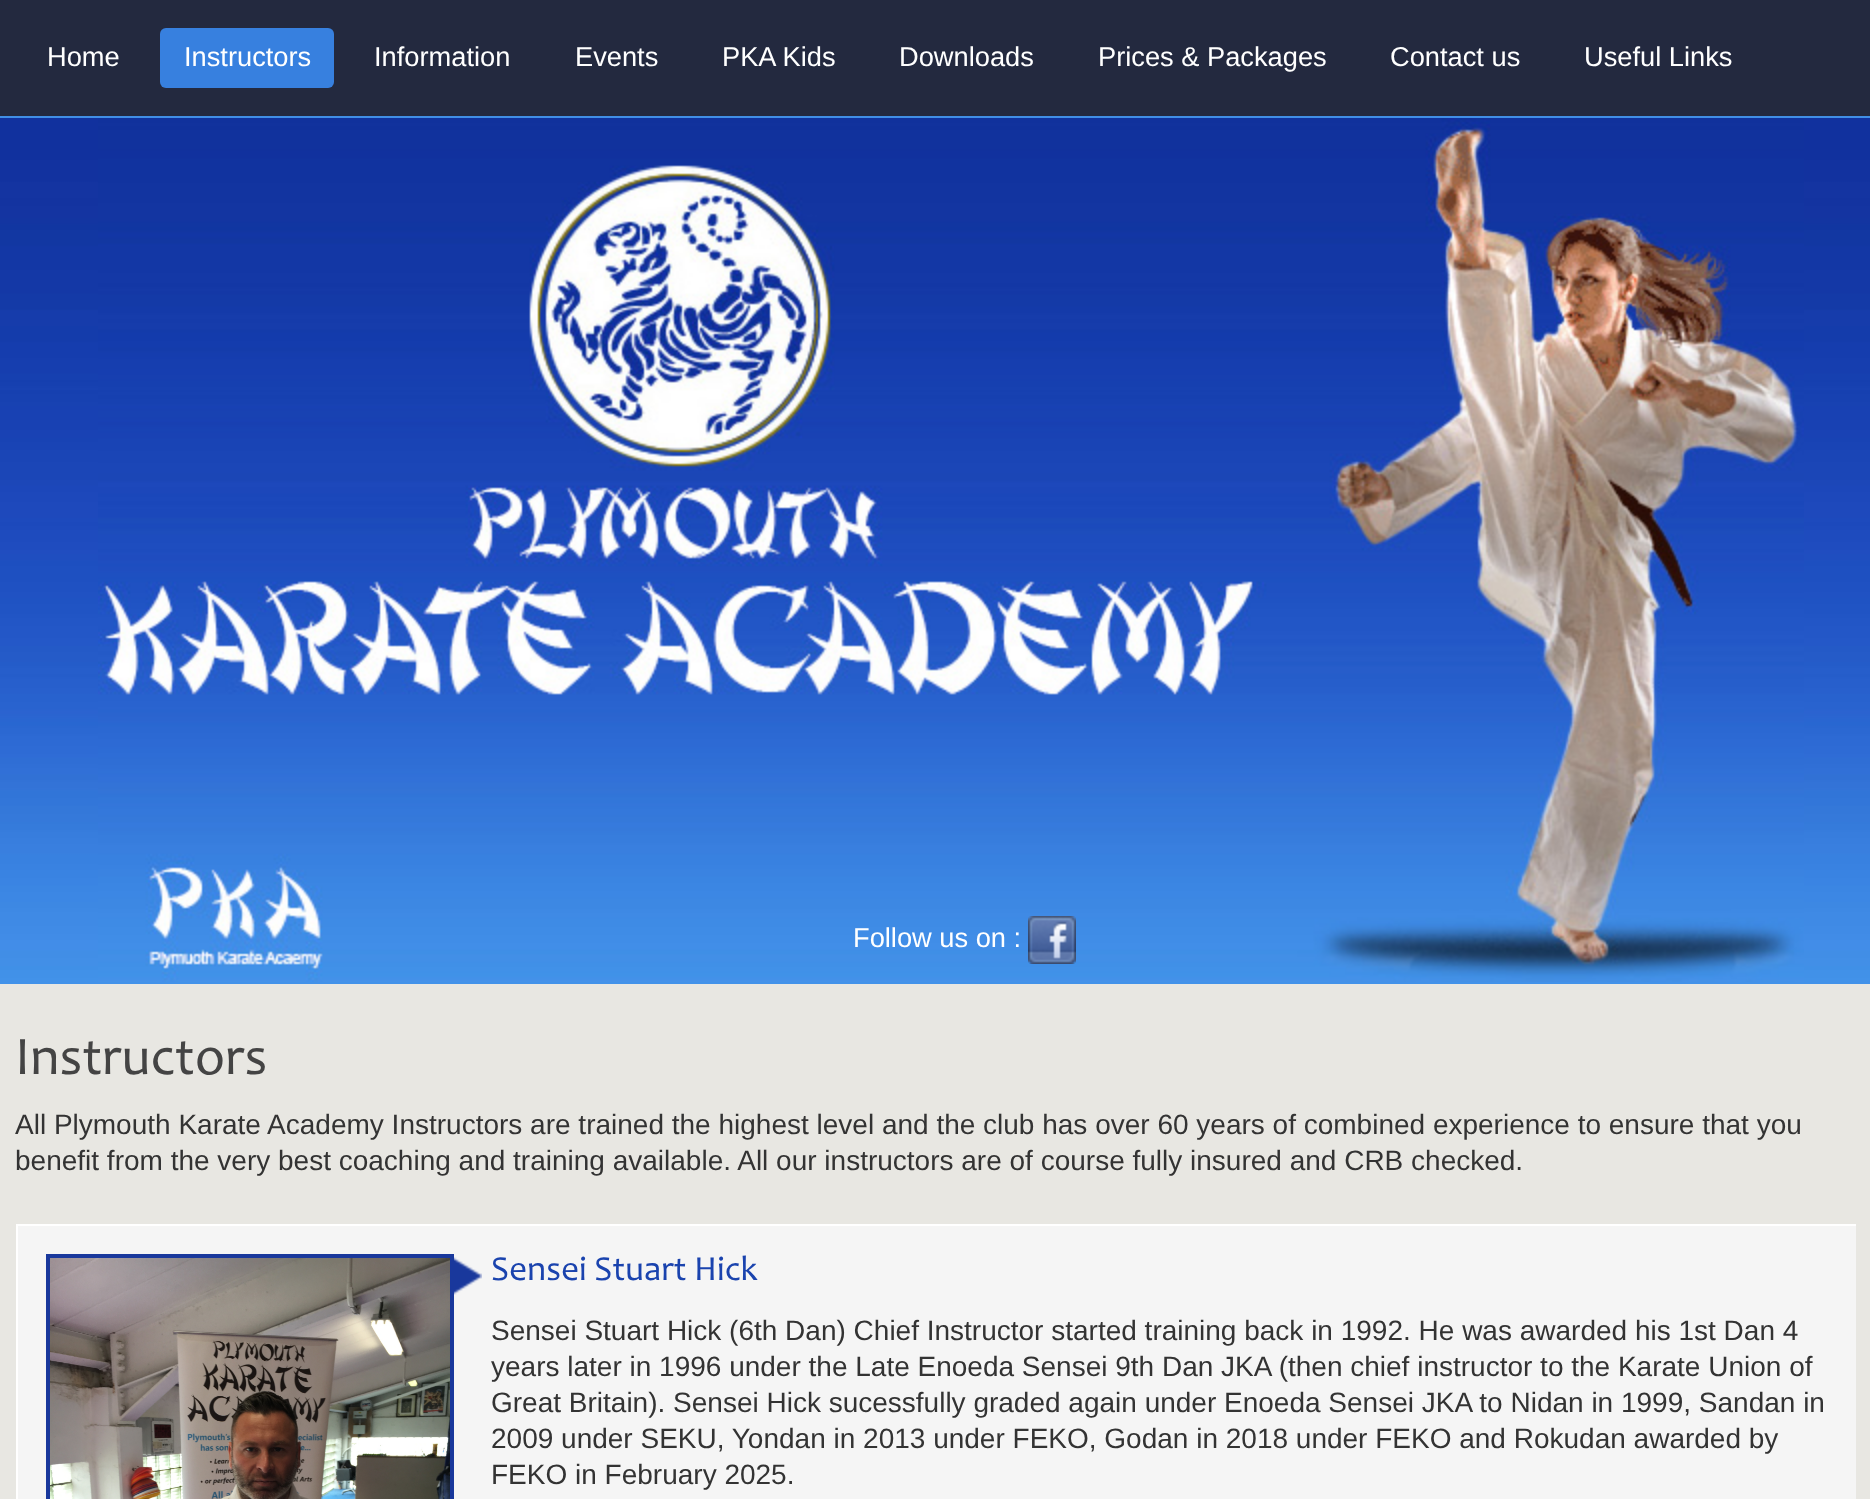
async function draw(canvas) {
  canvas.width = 1870;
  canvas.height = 1499;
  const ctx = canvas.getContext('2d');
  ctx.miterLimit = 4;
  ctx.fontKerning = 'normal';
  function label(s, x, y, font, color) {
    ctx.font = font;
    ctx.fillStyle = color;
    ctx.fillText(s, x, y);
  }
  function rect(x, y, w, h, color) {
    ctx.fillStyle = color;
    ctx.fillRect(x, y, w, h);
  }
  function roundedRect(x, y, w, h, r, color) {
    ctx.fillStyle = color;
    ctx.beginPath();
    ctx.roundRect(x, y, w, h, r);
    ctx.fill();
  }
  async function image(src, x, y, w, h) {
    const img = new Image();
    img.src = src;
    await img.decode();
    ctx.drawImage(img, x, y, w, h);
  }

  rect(0, 0, 1870, 1499, '#fff');
  rect(0, 0, 1870, 116, '#23293f');
  rect(0, 116, 1870, 2, '#418ee6');
  label('Home', 47, 66, '27.25px Liberation Sans', '#fff');
  roundedRect(160, 28, 174, 60, 6, '#3780df');
  label('Instructors', 184, 66, '27.25px Liberation Sans', '#fff');
  label('Information', 374, 66, '27.25px Liberation Sans', '#fff');
  label('Events', 575, 66, '27.25px Liberation Sans', '#fff');
  label('PKA Kids', 722, 66, '27.25px Liberation Sans', '#fff');
  label('Downloads', 899, 66, '27.25px Liberation Sans', '#fff');
  label('Prices & Packages', 1098, 66, '27.25px Liberation Sans', '#fff');
  label('Contact us', 1390, 66, '27.25px Liberation Sans', '#fff');
  label('Useful Links', 1584, 66, '27.25px Liberation Sans', '#fff');
  await image('assets/img1.png', 0, 118, 1870, 866);
  await image('assets/img2.png', 98, 118, 1706, 864);
  label('Follow us on :', 853, 947, '27.25px Liberation Sans', '#fff');
  await image('assets/img3.png', 1028, 916, 48, 48);
  rect(0, 984, 1870, 515, '#e8e7e2');
  label('Instructors', 15, 1074, '54.5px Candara', '#444');
  label('All Plymouth Karate Academy Instructors are trained the highest level and the club has over 60 years of combined experience to ensure that you', 15, 1134, '28px Liberation Sans', '#333');
  label('benefit from the very best coaching and training available. All our instructors are of course fully insured and CRB checked.', 15, 1170, '28px Liberation Sans', '#333');
  rect(18, 1226, 1838, 273, '#f5f5f5');
  rect(16, 1224, 1840, 2, '#fff');
  rect(16, 1224, 2, 275, '#fff');
  await image('assets/img4.png', 454, 1257, 28, 38);
  ctx.strokeStyle = '#19389c';
  ctx.lineWidth = 4;
  ctx.strokeRect(48, 1256, 404, 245);
  await image('assets/img5.png', 50, 1258, 400, 241);
  label('Sensei Stuart Hick', 491, 1280, '35.25px Candara', '#1a43ae');
  label('Sensei Stuart Hick (6th Dan) Chief Instructor started training back in 1992. He was awarded his 1st Dan 4', 491, 1340, '28px Liberation Sans', '#333');
  label('years later in 1996 under the Late Enoeda Sensei 9th Dan JKA (then chief instructor to the Karate Union of', 491, 1376, '28px Liberation Sans', '#333');
  label('Great Britain). Sensei Hick sucessfully graded again under Enoeda Sensei JKA to Nidan in 1999, Sandan in', 491, 1412, '28px Liberation Sans', '#333');
  label('2009 under SEKU, Yondan in 2013 under FEKO, Godan in 2018 under FEKO and Rokudan awarded by', 491, 1448, '28px Liberation Sans', '#333');
  label('FEKO in February 2025.', 491, 1484, '28px Liberation Sans', '#333');
}

draw(document.querySelector('canvas'));
